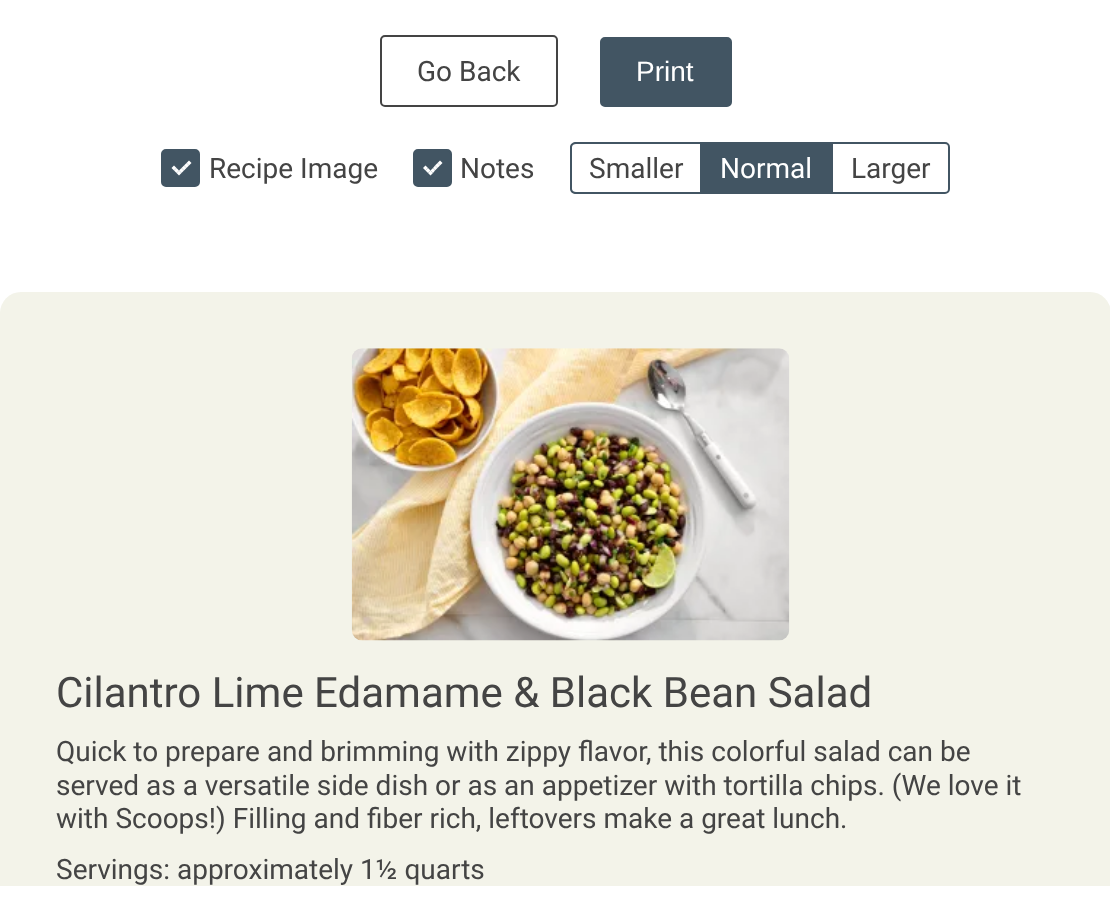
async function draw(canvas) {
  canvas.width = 1110;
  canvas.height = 919;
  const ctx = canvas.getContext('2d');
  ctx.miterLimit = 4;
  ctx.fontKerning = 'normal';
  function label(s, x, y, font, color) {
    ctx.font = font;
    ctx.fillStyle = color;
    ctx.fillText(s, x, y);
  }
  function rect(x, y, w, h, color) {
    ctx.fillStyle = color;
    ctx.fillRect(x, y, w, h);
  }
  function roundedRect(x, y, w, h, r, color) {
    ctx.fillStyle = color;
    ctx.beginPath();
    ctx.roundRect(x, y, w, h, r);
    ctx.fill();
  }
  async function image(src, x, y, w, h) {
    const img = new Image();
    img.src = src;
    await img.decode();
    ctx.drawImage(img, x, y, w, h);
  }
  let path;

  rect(0, 0, 1110, 919, '#fff');
  ctx.beginPath();
  ctx.roundRect(381, 36, 176, 70, 4);
  ctx.strokeStyle = '#444';
  ctx.lineWidth = 2;
  ctx.stroke();
  label('Go Back', 417, 81, '28px Roboto', '#444');
  ctx.fillStyle = '#425563';
  ctx.beginPath();
  ctx.roundRect(601, 38, 130, 68, 4);
  ctx.fill();
  ctx.strokeStyle = '#425563';
  ctx.stroke();
  label('Print', 636, 81, '28px Liberation Sans', '#fff');
  ctx.fillStyle = '#425563';
  ctx.beginPath();
  ctx.roundRect(162, 150, 37, 36, 4);
  ctx.fill();
  ctx.stroke();
  label('Recipe Image', 209, 178, '28px Roboto', '#444');
  ctx.fillStyle = '#fff';
  path = new Path2D('M189 160.5L191.5 163L189 165.5L186.5 163Z');
  ctx.fill(path);
  path = new Path2D('M186.5 163L189 165.5L186.5 168L184 165.5Z');
  ctx.fill(path);
  path = new Path2D('M184 165.5L186.5 168L184 170.5L181.5 168Z');
  ctx.fill(path);
  path = new Path2D('M181.5 168L184 170.5L181.5 173L179 170.5Z');
  ctx.fill(path);
  path = new Path2D('M179 170.5L181.5 173L179 175.5L176.5 173Z');
  ctx.fill(path);
  path = new Path2D('M176.5 168L179 170.5L176.5 173L174 170.5Z');
  ctx.fill(path);
  path = new Path2D('M174 165.5L176.5 168L174 170.5L171.5 168Z');
  ctx.fill(path);
  ctx.fillStyle = '#425563';
  ctx.beginPath();
  ctx.roundRect(414, 150, 37, 36, 4);
  ctx.fill();
  ctx.stroke();
  label('Notes', 460, 178, '28px Roboto', '#444');
  ctx.fillStyle = '#fff';
  path = new Path2D('M440 160.5L442.5 163L440 165.5L437.5 163Z');
  ctx.fill(path);
  path = new Path2D('M437.5 163L440 165.5L437.5 168L435 165.5Z');
  ctx.fill(path);
  path = new Path2D('M435 165.5L437.5 168L435 170.5L433 168Z');
  ctx.fill(path);
  path = new Path2D('M433 168L435 170.5L433 173L430.5 170.5Z');
  ctx.fill(path);
  path = new Path2D('M430.5 170.5L433 173L430.5 175.5L428 173Z');
  ctx.fill(path);
  path = new Path2D('M428 168L430.5 170.5L428 173L425.5 170.5Z');
  ctx.fill(path);
  path = new Path2D('M425.5 165.5L428 168L425.5 170.5L423 168Z');
  ctx.fill(path);
  ctx.fillStyle = '#425563';
  path = new Path2D('M576 142H700V194H576C573 194 570 192 570 189V147C570 144 573 142 576 142ZM576 144H700V192H576C574 192 572 191 572 189V147C572 145 574 144 576 144Z');
  ctx.fill(path, 'evenodd');
  label('Smaller', 589, 178, '28px Roboto', '#444');
  rect(700, 142, 131, 52, '#425563');
  label('Normal', 720, 178, '28px Roboto', '#fff');
  ctx.beginPath();
  ctx.roundRect(832, 143, 117, 50, [0, 4, 4, 0]);
  ctx.stroke();
  label('Larger', 851, 178, '28px Roboto', '#444');
  roundedRect(0, 292, 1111, 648, 21, '#f3f3e9');
  await image('assets/img1.png', 351, 348, 439, 293);
  label('Cilantro Lime Edamame & Black Bean Salad', 56, 707, '42px Roboto', '#444');
  label('Quick to prepare and brimming with zippy flavor, this colorful salad can be', 56, 761, '28px Roboto', '#444');
  label('served as a versatile side dish or as an appetizer with tortilla chips. (We love it', 56, 795, '28px Roboto', '#444');
  label('with Scoops!) Filling and fiber rich, leftovers make a great lunch.', 56, 828, '28px Roboto', '#444');
  label('Servings: approximately 1½ quarts', 56, 879, '28px Roboto', '#444');
  rect(0, 886, 1110, 33, '#fff');
}

draw(document.querySelector('canvas'));
